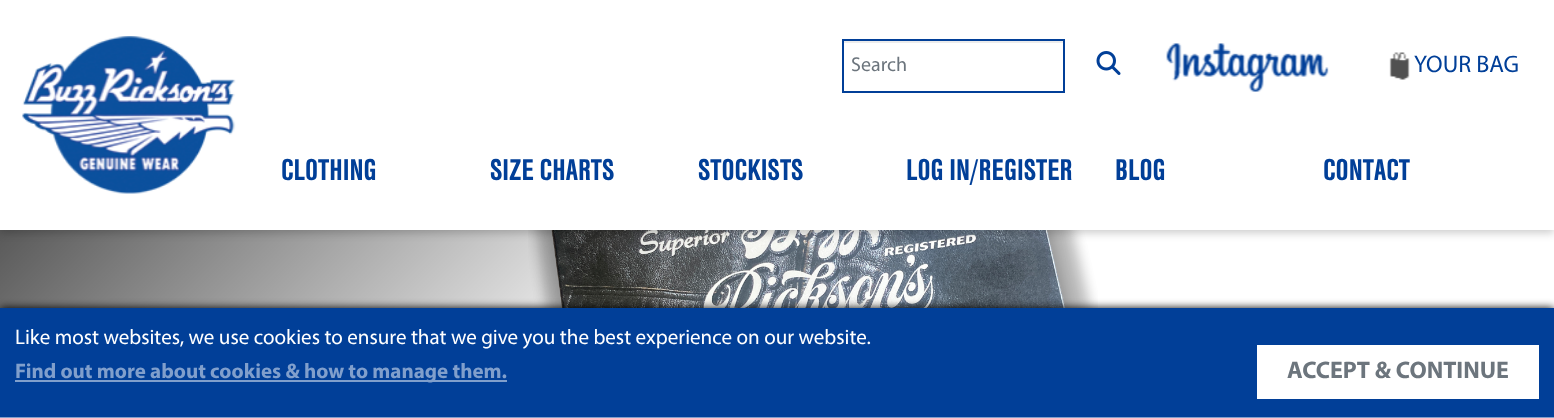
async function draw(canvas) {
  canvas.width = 1554;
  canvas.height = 418;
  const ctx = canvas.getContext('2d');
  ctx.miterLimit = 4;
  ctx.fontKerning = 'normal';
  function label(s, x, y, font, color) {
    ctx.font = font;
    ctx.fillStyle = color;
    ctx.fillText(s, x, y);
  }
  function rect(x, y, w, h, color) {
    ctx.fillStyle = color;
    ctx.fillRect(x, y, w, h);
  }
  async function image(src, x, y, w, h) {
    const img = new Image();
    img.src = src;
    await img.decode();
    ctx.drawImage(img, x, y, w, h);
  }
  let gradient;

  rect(0, 0, 1554, 418, '#fff');
  await image('assets/img5.png', 528, 230, 570, 78);
  gradient = ctx.createLinearGradient(0, 230, 750, 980);
  gradient.addColorStop(0, '#000000a6');
  gradient.addColorStop(0.5, '#00000000');
  ctx.fillStyle = gradient;
  ctx.fillRect(0, 230, 725, 78);
  ctx.fillStyle = '#00000033';
  ctx.filter = 'blur(4.5px)';
  ctx.beginPath();
  ctx.rect(0, 3, 1554, 230);
  ctx.fill();
  ctx.filter = 'none';
  rect(0, 0, 1554, 230, '#fff');
  rect(843, 41, 221, 2, '#ececec');
  ctx.strokeStyle = '#013f98';
  ctx.lineWidth = 2;
  ctx.strokeRect(843, 40, 221, 52);
  label('Search', 851, 71, '20px myriad', '#6c757d');
  await image('assets/img1.png', 1096, 51, 25, 24);
  await image('assets/img2.png', 1166, 43, 163, 49);
  await image('assets/img3.png', 1389, 52, 21, 28);
  label('YOUR BAG', 1414, 72, '24px myriad', '#013f98');
  await image('assets/img4.png', 22, 36, 214, 158);
  label('CLOTHING', 281, 180, 'bold 31.25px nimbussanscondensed', '#013f98');
  label('SIZE CHARTS', 490, 180, 'bold 31.25px nimbussanscondensed', '#013f98');
  label('STOCKISTS', 698, 180, 'bold 31.25px nimbussanscondensed', '#013f98');
  label('LOG IN/REGISTER', 906, 180, 'bold 31.25px nimbussanscondensed', '#013f98');
  label('BLOG', 1115, 180, 'bold 31.25px nimbussanscondensed', '#013f98');
  label('CONTACT', 1323, 180, 'bold 31.25px nimbussanscondensed', '#013f98');
  ctx.fillStyle = '#000';
  ctx.filter = 'blur(4px)';
  ctx.beginPath();
  ctx.rect(0, 308, 1554, 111);
  ctx.fill();
  ctx.filter = 'none';
  rect(0, 308, 1554, 109, '#013f98');
  rect(0, 417, 1554, 1, '#809fcc');
  label('Like most websites, we use cookies to ensure that we give you the best experience on our website.', 15, 344, '21px myriad', '#fff');
  rect(15, 380, 492, 2, '#809fcc');
  label('Find out more about cookies & how to manage them.', 15, 378, 'bold 21px myriad', '#809fcc');
  rect(1257, 345, 282, 54, '#fff');
  label('ACCEPT & CONTINUE', 1287, 378, 'bold 24px myriad', '#6c757d');
}

draw(document.querySelector('canvas'));
